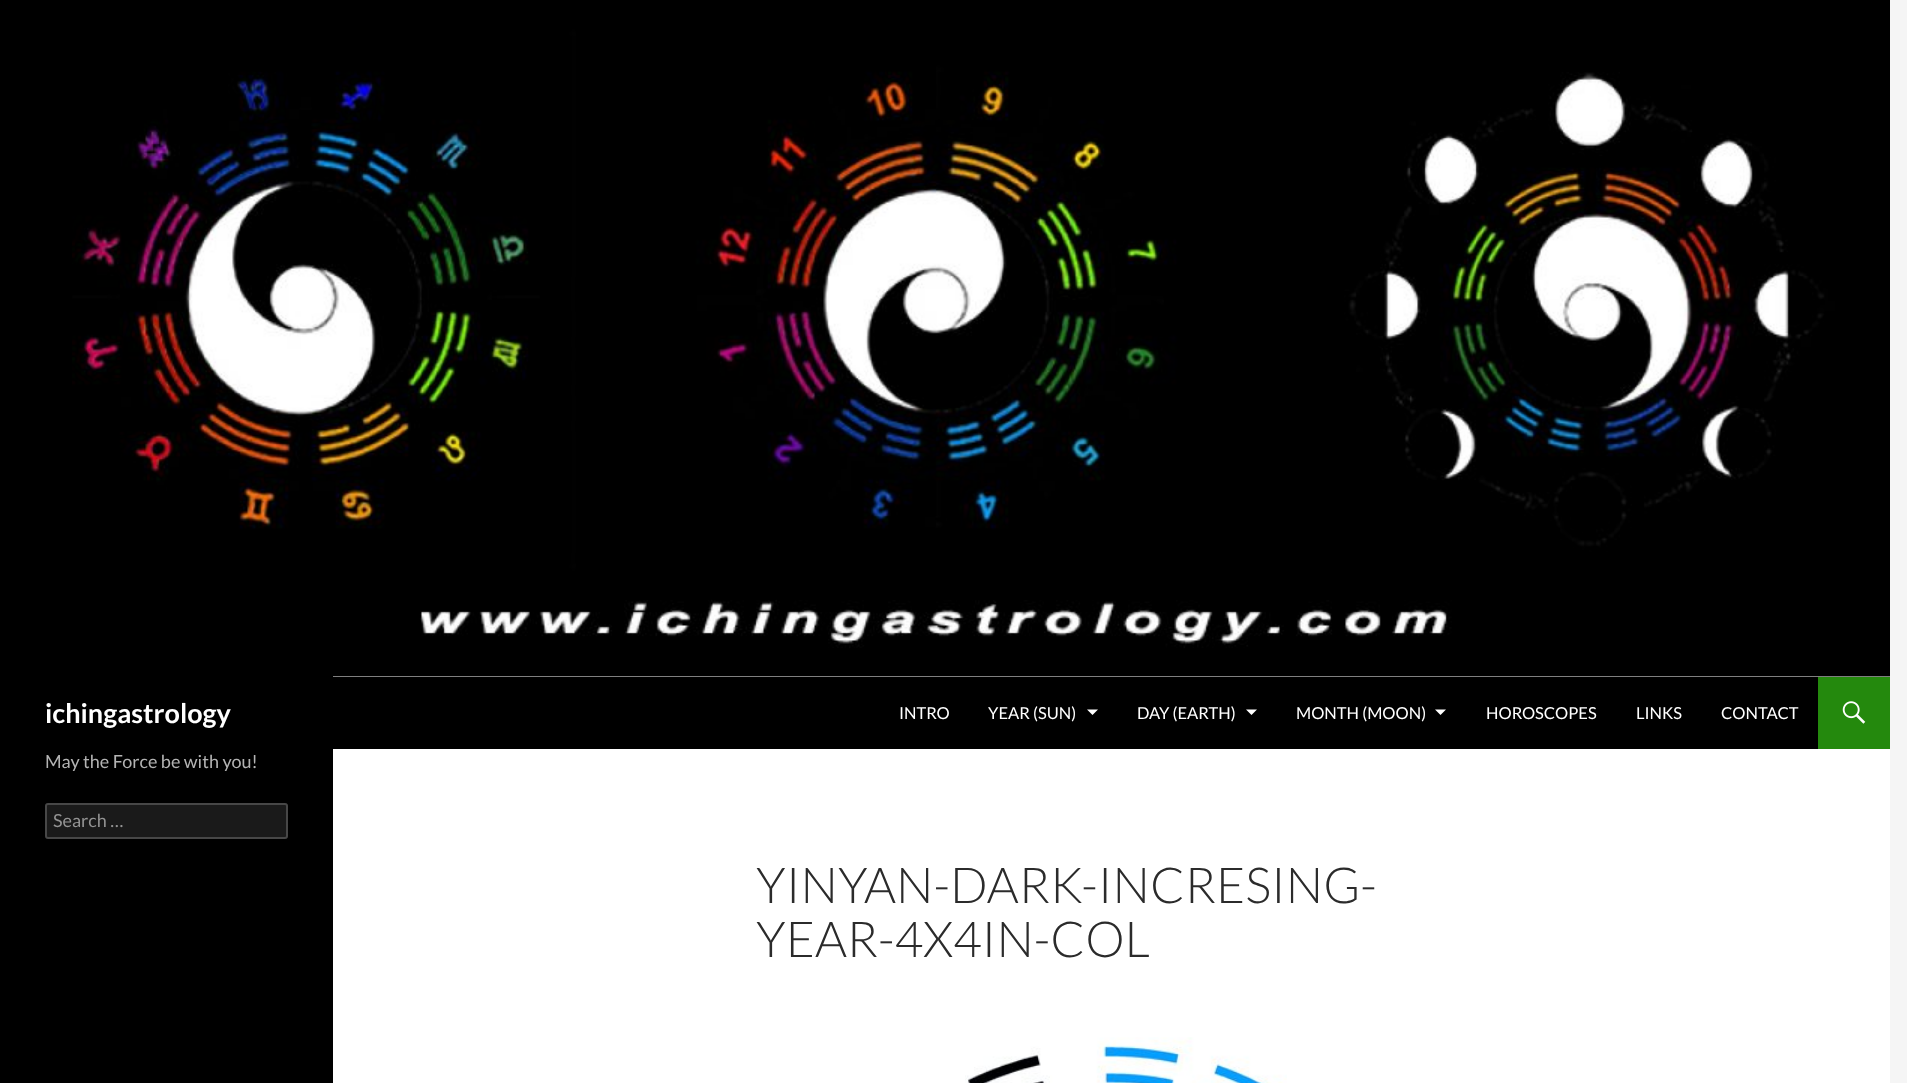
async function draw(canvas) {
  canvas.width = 1907;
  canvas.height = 1083;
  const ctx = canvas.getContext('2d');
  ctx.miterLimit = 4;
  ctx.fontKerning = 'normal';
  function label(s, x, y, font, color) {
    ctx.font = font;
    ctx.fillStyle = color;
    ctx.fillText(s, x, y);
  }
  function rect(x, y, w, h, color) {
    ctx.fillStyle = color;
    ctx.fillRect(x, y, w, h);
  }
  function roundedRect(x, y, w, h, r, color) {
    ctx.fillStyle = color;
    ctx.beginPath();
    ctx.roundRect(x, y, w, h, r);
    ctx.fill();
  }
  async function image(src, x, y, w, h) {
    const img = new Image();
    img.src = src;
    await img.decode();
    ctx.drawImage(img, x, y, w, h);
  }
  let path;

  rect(0, 0, 1907, 1083, '#f5f5f5');
  rect(333, 676, 1557, 407, '#fff');
  rect(0, 0, 333, 1083, '#000');
  await image('assets/img1.png', 72, 0, 1818, 677);
  rect(333, 677, 1485, 72, '#000');
  label('ichingastrology', 45, 723, 'bold 27px Lato', '#fff');
  label('INTRO', 899, 719, '16.5px Lato', '#fff');
  label('YEAR (SUN)', 988, 719, '16.5px Lato', '#fff');
  path = new Path2D('M1087 709.5L1092.5 715L1098 709.5Z');
  ctx.fill(path);
  label('DAY (EARTH)', 1137, 719, '16.5px Lato', '#fff');
  path = new Path2D('M1246 709.5L1251.5 715L1257 709.5Z');
  ctx.fill(path);
  label('MONTH (MOON)', 1296, 719, '16.5px Lato', '#fff');
  path = new Path2D('M1435 709.5L1440.5 715L1446 709.5Z');
  ctx.fill(path);
  label('HOROSCOPES', 1486, 719, '16.5px Lato', '#fff');
  label('LINKS', 1636, 719, '16.5px Lato', '#fff');
  label('CONTACT', 1721, 719, '16.5px Lato', '#fff');
  rect(1818, 677, 72, 72, '#24890d');
  await image('assets/img2.png', 1842, 701, 24, 23);
  label('May the Force be with you!', 45, 768, '18px Lato', '#b3b3b3');
  roundedRect(45, 803, 243, 36, 3, '#1a1a1a');
  ctx.beginPath();
  ctx.roundRect(46, 804, 241, 34, 2);
  ctx.strokeStyle = '#ffffff33';
  ctx.lineWidth = 2;
  ctx.stroke();
  label('Search …', 53, 827, '18px Lato', '#939393');
  label('YINYAN-DARK-INCRESING-', 756, 903, '300 49.5px Lato', '#2b2b2b');
  label('YEAR-4X4IN-COL', 756, 957, '300 49.5px Lato', '#2b2b2b');
  await image('assets/img3.png', 965, 1037, 322, 46);
}

draw(document.querySelector('canvas'));
